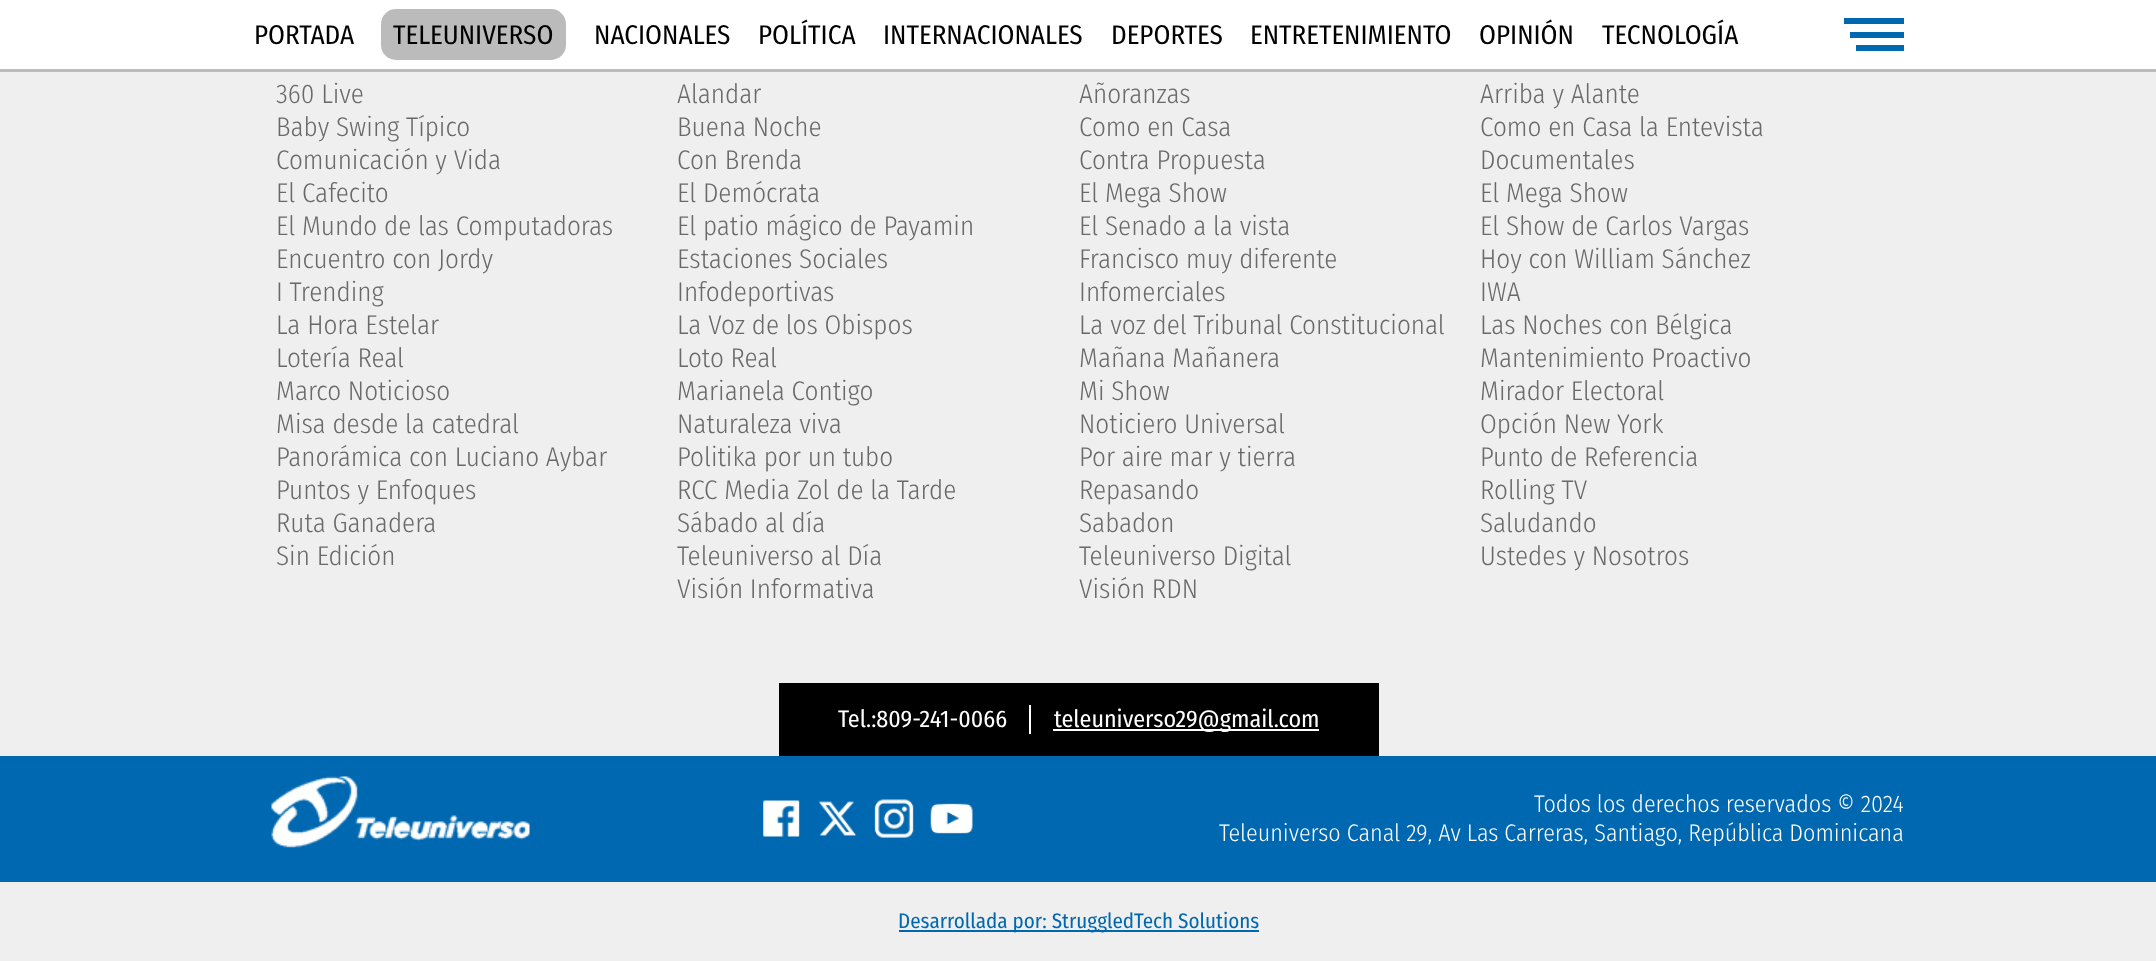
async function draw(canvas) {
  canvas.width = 2156;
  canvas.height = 961;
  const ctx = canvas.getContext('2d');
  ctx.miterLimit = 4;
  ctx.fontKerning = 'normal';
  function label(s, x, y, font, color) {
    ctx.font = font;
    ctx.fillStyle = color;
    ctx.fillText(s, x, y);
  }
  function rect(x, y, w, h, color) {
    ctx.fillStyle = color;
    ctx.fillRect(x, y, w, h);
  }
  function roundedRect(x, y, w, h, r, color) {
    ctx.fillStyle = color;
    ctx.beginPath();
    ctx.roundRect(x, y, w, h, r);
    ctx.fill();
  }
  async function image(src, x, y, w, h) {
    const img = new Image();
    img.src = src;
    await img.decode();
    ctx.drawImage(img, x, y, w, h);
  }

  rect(0, 0, 2156, 961, '#efefef');
  rect(0, 0, 2156, 69, '#fff');
  rect(0, 69, 2156, 3, '#bbb');
  label('PORTADA', 254, 44, '27px Fira Sans Condensed', '#000');
  roundedRect(381, 9, 185, 51, 15, '#bbb');
  label('TELEUNIVERSO', 393, 44, '27px Fira Sans Condensed', '#000');
  label('NACIONALES', 594, 44, '27px Fira Sans Condensed', '#000');
  label('POLÍTICA', 758, 44, '27px Fira Sans Condensed', '#000');
  label('INTERNACIONALES', 883, 44, '27px Fira Sans Condensed', '#000');
  label('DEPORTES', 1111, 44, '27px Fira Sans Condensed', '#000');
  label('ENTRETENIMIENTO', 1250, 44, '27px Fira Sans Condensed', '#000');
  label('OPINIÓN', 1479, 44, '27px Fira Sans Condensed', '#000');
  label('TECNOLOGÍA', 1602, 44, '27px Fira Sans Condensed', '#000');
  rect(1844, 18, 60, 6, '#0068b0');
  rect(1850, 32, 54, 6, '#0068b0');
  rect(1856, 45, 48, 6, '#0068b0');
  label('360 Live', 276, 103, '300 27px Fira Sans Condensed', '#696969');
  label('Alandar', 677, 103, '300 27px Fira Sans Condensed', '#696969');
  label('Añoranzas', 1079, 103, '300 27px Fira Sans Condensed', '#696969');
  label('Arriba y Alante', 1480, 103, '300 27px Fira Sans Condensed', '#696969');
  label('Baby Swing Típico', 276, 136, '300 27px Fira Sans Condensed', '#696969');
  label('Buena Noche', 677, 136, '300 27px Fira Sans Condensed', '#696969');
  label('Como en Casa', 1079, 136, '300 27px Fira Sans Condensed', '#696969');
  label('Como en Casa la Entevista', 1480, 136, '300 27px Fira Sans Condensed', '#696969');
  label('Comunicación y Vida', 276, 169, '300 27px Fira Sans Condensed', '#696969');
  label('Con Brenda', 677, 169, '300 27px Fira Sans Condensed', '#696969');
  label('Contra Propuesta', 1079, 169, '300 27px Fira Sans Condensed', '#696969');
  label('Documentales', 1480, 169, '300 27px Fira Sans Condensed', '#696969');
  label('El Cafecito', 276, 202, '300 27px Fira Sans Condensed', '#696969');
  label('El Demócrata', 677, 202, '300 27px Fira Sans Condensed', '#696969');
  label('El Mega Show', 1079, 202, '300 27px Fira Sans Condensed', '#696969');
  label('El Mega Show', 1480, 202, '300 27px Fira Sans Condensed', '#696969');
  label('El Mundo de las Computadoras', 276, 235, '300 27px Fira Sans Condensed', '#696969');
  label('El patio mágico de Payamin', 677, 235, '300 27px Fira Sans Condensed', '#696969');
  label('El Senado a la vista', 1079, 235, '300 27px Fira Sans Condensed', '#696969');
  label('El Show de Carlos Vargas', 1480, 235, '300 27px Fira Sans Condensed', '#696969');
  label('Encuentro con Jordy', 276, 268, '300 27px Fira Sans Condensed', '#696969');
  label('Estaciones Sociales', 677, 268, '300 27px Fira Sans Condensed', '#696969');
  label('Francisco muy diferente', 1079, 268, '300 27px Fira Sans Condensed', '#696969');
  label('Hoy con William Sánchez', 1480, 268, '300 27px Fira Sans Condensed', '#696969');
  label('I Trending', 276, 301, '300 27px Fira Sans Condensed', '#696969');
  label('Infodeportivas', 677, 301, '300 27px Fira Sans Condensed', '#696969');
  label('Infomerciales', 1079, 301, '300 27px Fira Sans Condensed', '#696969');
  label('IWA', 1480, 301, '300 27px Fira Sans Condensed', '#696969');
  label('La Hora Estelar', 276, 334, '300 27px Fira Sans Condensed', '#696969');
  label('La Voz de los Obispos', 677, 334, '300 27px Fira Sans Condensed', '#696969');
  label('La voz del Tribunal Constitucional', 1079, 334, '300 27px Fira Sans Condensed', '#696969');
  label('Las Noches con Bélgica', 1480, 334, '300 27px Fira Sans Condensed', '#696969');
  label('Lotería Real', 276, 367, '300 27px Fira Sans Condensed', '#696969');
  label('Loto Real', 677, 367, '300 27px Fira Sans Condensed', '#696969');
  label('Mañana Mañanera', 1079, 367, '300 27px Fira Sans Condensed', '#696969');
  label('Mantenimiento Proactivo', 1480, 367, '300 27px Fira Sans Condensed', '#696969');
  label('Marco Noticioso', 276, 400, '300 27px Fira Sans Condensed', '#696969');
  label('Marianela Contigo', 677, 400, '300 27px Fira Sans Condensed', '#696969');
  label('Mi Show', 1079, 400, '300 27px Fira Sans Condensed', '#696969');
  label('Mirador Electoral', 1480, 400, '300 27px Fira Sans Condensed', '#696969');
  label('Misa desde la catedral', 276, 433, '300 27px Fira Sans Condensed', '#696969');
  label('Naturaleza viva', 677, 433, '300 27px Fira Sans Condensed', '#696969');
  label('Noticiero Universal', 1079, 433, '300 27px Fira Sans Condensed', '#696969');
  label('Opción New York', 1480, 433, '300 27px Fira Sans Condensed', '#696969');
  label('Panorámica con Luciano Aybar', 276, 466, '300 27px Fira Sans Condensed', '#696969');
  label('Politika por un tubo', 677, 466, '300 27px Fira Sans Condensed', '#696969');
  label('Por aire mar y tierra', 1079, 466, '300 27px Fira Sans Condensed', '#696969');
  label('Punto de Referencia', 1480, 466, '300 27px Fira Sans Condensed', '#696969');
  label('Puntos y Enfoques', 276, 499, '300 27px Fira Sans Condensed', '#696969');
  label('RCC Media Zol de la Tarde', 677, 499, '300 27px Fira Sans Condensed', '#696969');
  label('Repasando', 1079, 499, '300 27px Fira Sans Condensed', '#696969');
  label('Rolling TV', 1480, 499, '300 27px Fira Sans Condensed', '#696969');
  label('Ruta Ganadera', 276, 532, '300 27px Fira Sans Condensed', '#696969');
  label('Sábado al día', 677, 532, '300 27px Fira Sans Condensed', '#696969');
  label('Sabadon', 1079, 532, '300 27px Fira Sans Condensed', '#696969');
  label('Saludando', 1480, 532, '300 27px Fira Sans Condensed', '#696969');
  label('Sin Edición', 276, 565, '300 27px Fira Sans Condensed', '#696969');
  label('Teleuniverso al Día', 677, 565, '300 27px Fira Sans Condensed', '#696969');
  label('Teleuniverso Digital', 1079, 565, '300 27px Fira Sans Condensed', '#696969');
  label('Ustedes y Nosotros', 1480, 565, '300 27px Fira Sans Condensed', '#696969');
  label('Visión Informativa', 677, 598, '300 27px Fira Sans Condensed', '#696969');
  label('Visión RDN', 1079, 598, '300 27px Fira Sans Condensed', '#696969');
  rect(0, 756, 2156, 126, '#0068b0');
  rect(779, 683, 600, 73, '#000');
  rect(1029, 705, 2, 29, '#fff');
  label('Tel.:809-241-0066', 838, 727, '24px Fira Sans Condensed', '#fff');
  rect(1053, 729, 266, 2, '#fff');
  label('teleuniverso29@gmail.com', 1054, 727, '24px Fira Sans Condensed', '#fff');
  await image('assets/img1.png', 271, 776, 259, 72);
  await image('assets/img2.png', 763, 800, 37, 37);
  await image('assets/img3.png', 819, 801, 38, 35);
  await image('assets/img4.png', 874, 799, 40, 39);
  await image('assets/img5.png', 930, 803, 43, 31);
  label('Todos los derechos reservados © 2024', 1534, 812, '300 24px Fira Sans Condensed', '#fff');
  label('Teleuniverso Canal 29, Av Las Carreras, Santiago, República Dominicana', 1219, 841, '300 24px Fira Sans Condensed', '#fff');
  rect(899, 930, 360, 2, '#0068b0');
  label('Desarrollada por: StruggledTech Solutions', 898, 928, '21px Fira Sans Condensed', '#0068b0');
}

draw(document.querySelector('canvas'));
